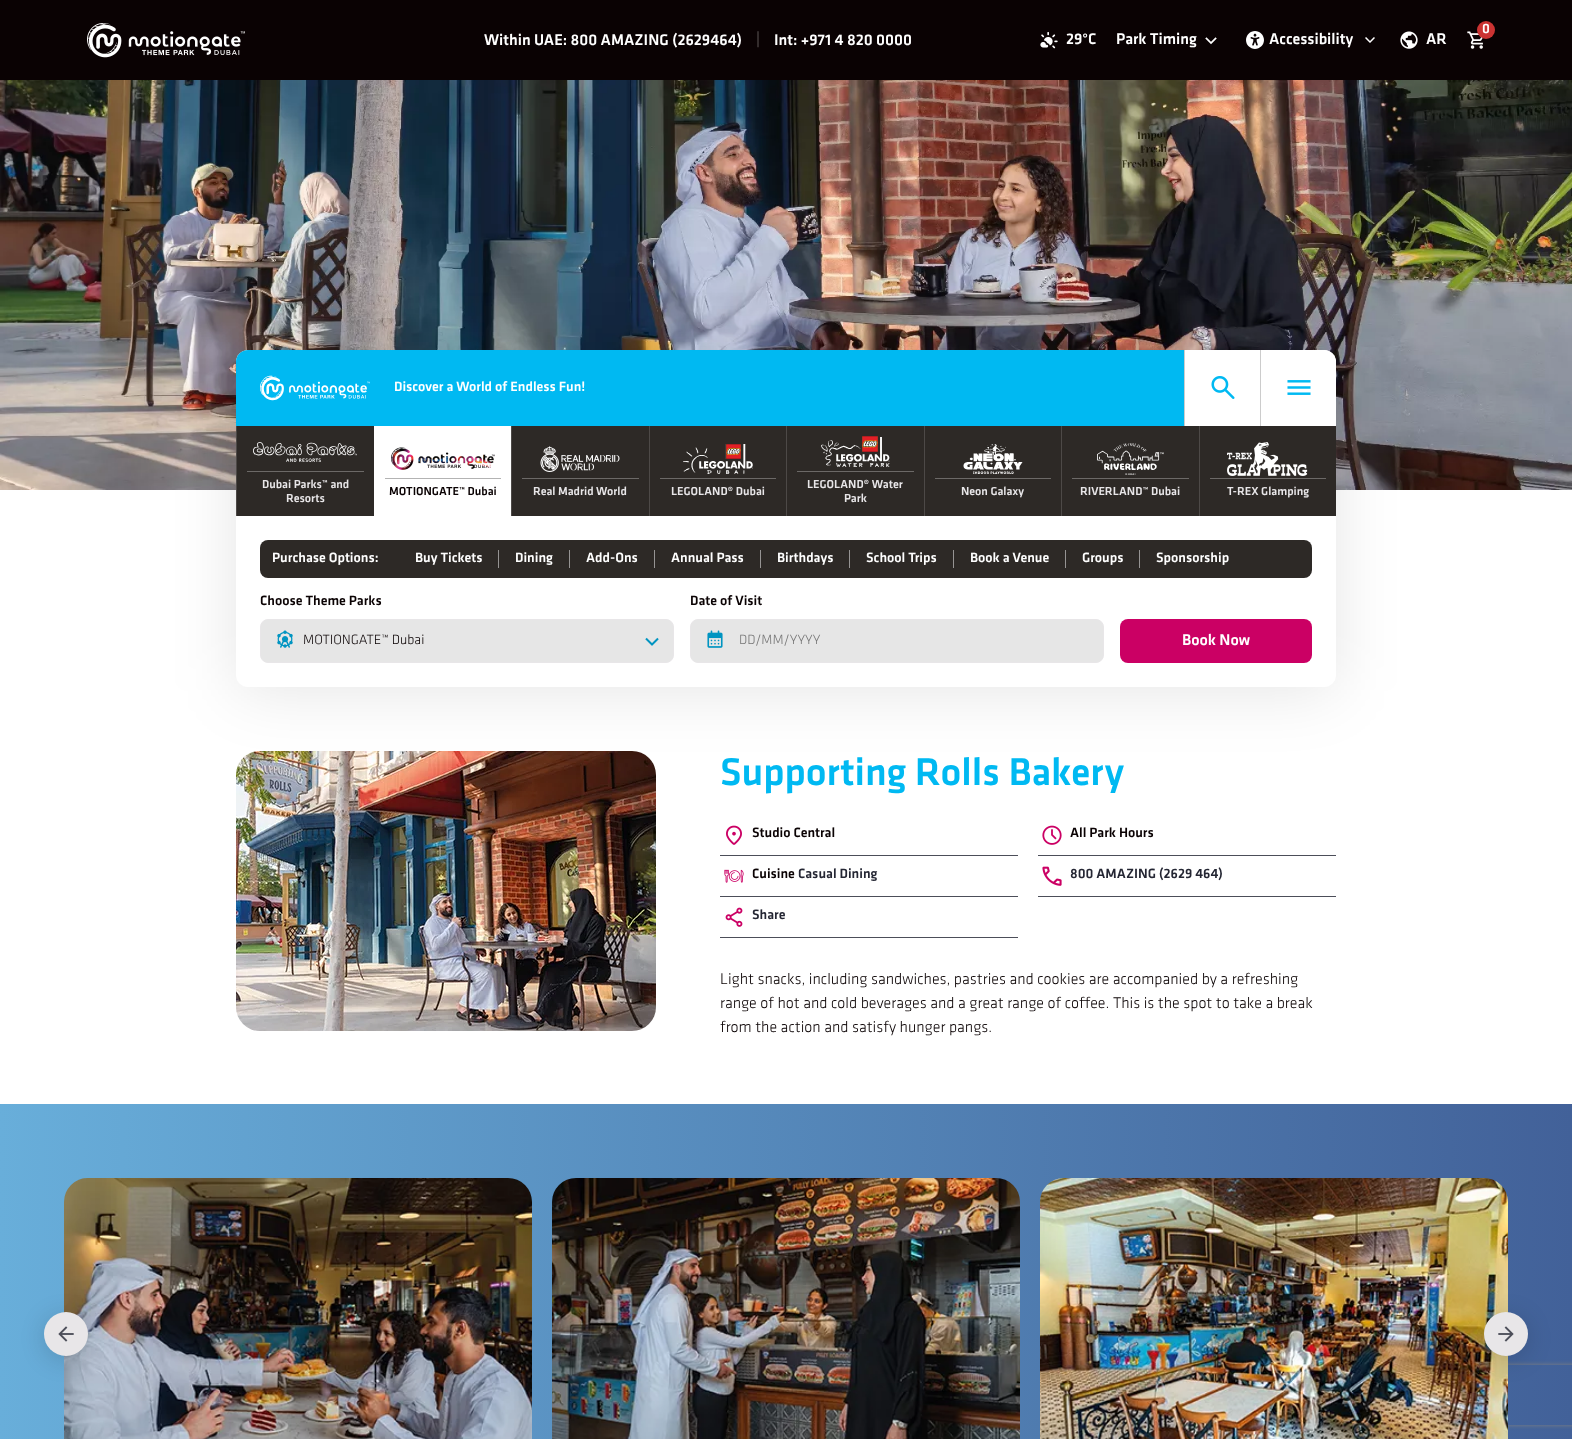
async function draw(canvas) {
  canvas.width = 1572;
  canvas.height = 1439;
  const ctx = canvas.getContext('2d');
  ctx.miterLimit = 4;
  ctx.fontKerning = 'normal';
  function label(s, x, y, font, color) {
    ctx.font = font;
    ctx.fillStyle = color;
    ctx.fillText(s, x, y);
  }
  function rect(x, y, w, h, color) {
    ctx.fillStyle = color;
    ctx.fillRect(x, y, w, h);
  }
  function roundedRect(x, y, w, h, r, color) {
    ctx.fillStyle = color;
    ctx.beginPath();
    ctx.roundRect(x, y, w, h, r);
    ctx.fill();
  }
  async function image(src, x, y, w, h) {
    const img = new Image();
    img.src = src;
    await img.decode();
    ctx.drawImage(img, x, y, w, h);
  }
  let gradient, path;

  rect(0, 0, 1572, 1439, '#fff');
  rect(0, 0, 1572, 80, '#0a0203');
  await image('assets/img1.png', 87, 23, 158, 35);
  label('Within UAE: 800 AMAZING (2629464)', 484, 45, '500 16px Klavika', '#fff');
  label('|', 756, 44, '300 16px Klavika', '#858181');
  label('Int: +971 4 820 0000', 774, 45, '500 16px Klavika', '#fff');
  await image('assets/img2.png', 1040, 31, 18, 18);
  label('29°C', 1066, 44, '500 16px Klavika', '#fff');
  label('Park Timing', 1116, 44, '500 16px Klavika', '#fff');
  await image('assets/img3.png', 1205, 37, 12, 8);
  await image('assets/img4.png', 1246, 31, 18, 18);
  label('Accessibility', 1269, 44, '500 16px Klavika', '#fff');
  await image('assets/img5.png', 1365, 37, 10, 6);
  await image('assets/img6.png', 1467, 31, 16, 18);
  ctx.fillStyle = '#cb3332';
  ctx.beginPath();
  ctx.arc(1486, 30, 9, 0, 2 * Math.PI);
  ctx.fill();
  label('0', 1482, 33, '500 14px Klavika', '#fff');
  await image('assets/img7.png', 1400, 31, 18, 18);
  label('AR', 1426, 44, '500 16px Klavika', '#fff');
  await image('assets/img8.png', 0, 80, 1572, 410);
  await image('assets/img23.png', 236, 751, 420, 280);
  ctx.fillStyle = '#0000001a';
  ctx.filter = 'blur(32px)';
  ctx.beginPath();
  ctx.roundRect(236, 354, 1100, 337, 12);
  ctx.fill();
  ctx.filter = 'none';
  roundedRect(236, 350, 1100, 337, 12, '#fff');
  ctx.fillStyle = '#00b9f2';
  ctx.beginPath();
  ctx.roundRect(236, 350, 948, 76, [12, 0, 0, 0]);
  ctx.fill();
  await image('assets/img9.png', 260, 375, 110, 26);
  label('Discover a World of Endless Fun!', 394, 391, '500 14px Klavika', '#fff');
  rect(1184, 350, 1, 76, '#ccc');
  await image('assets/img10.png', 1211, 376, 24, 23);
  ctx.fillStyle = '#fff';
  ctx.beginPath();
  ctx.roundRect(1260, 350, 76, 76, [0, 12, 0, 0]);
  ctx.fill();
  rect(1260, 350, 1, 76, '#ccc');
  await image('assets/img11.png', 1287, 380, 24, 15);
  rect(237, 426, 137, 90, '#2d2926');
  rect(236, 426, 1, 90, '#4d4947');
  await image('assets/img12.png', 253, 442, 104, 20);
  rect(247, 471, 117, 1, '#6c6967');
  label('Dubai Parks™ and', 262, 488, '500 12px Klavika', '#e8e6e8');
  label('Resorts', 286, 502, '500 12px Klavika', '#e8e6e8');
  await image('assets/img13.png', 391, 447, 104, 23);
  rect(385, 478, 116, 1, '#b3b3b3');
  label('MOTIONGATE™ Dubai', 389, 495, '500 12px Klavika', '#0a0203');
  rect(512, 426, 137, 90, '#2d2926');
  rect(511, 426, 1, 90, '#4d4947');
  await image('assets/img14.png', 540, 446, 80, 26);
  rect(522, 478, 117, 1, '#6c6967');
  label('Real Madrid World', 533, 495, '500 12px Klavika', '#e8e6e8');
  rect(650, 426, 136, 90, '#2d2926');
  rect(649, 426, 1, 90, '#4d4947');
  await image('assets/img15.png', 683, 444, 70, 30);
  rect(660, 478, 116, 1, '#6c6967');
  label('LEGOLAND® Dubai', 671, 495, '500 12px Klavika', '#e8e6e8');
  rect(787, 426, 137, 90, '#2d2926');
  rect(786, 426, 1, 90, '#4d4947');
  await image('assets/img16.png', 821, 436, 69, 31);
  rect(797, 471, 117, 1, '#6c6967');
  label('LEGOLAND® Water', 807, 488, '500 12px Klavika', '#e8e6e8');
  label('Park', 844, 502, '500 12px Klavika', '#e8e6e8');
  rect(925, 426, 136, 90, '#2d2926');
  rect(924, 426, 1, 90, '#4d4947');
  await image('assets/img17.png', 963, 444, 60, 30);
  rect(935, 478, 116, 1, '#6c6967');
  label('Neon Galaxy', 961, 495, '500 12px Klavika', '#e8e6e8');
  rect(1062, 426, 137, 90, '#2d2926');
  rect(1061, 426, 1, 90, '#4d4947');
  await image('assets/img18.png', 1097, 443, 67, 32);
  rect(1072, 478, 117, 1, '#6c6967');
  label('RIVERLAND™ Dubai', 1080, 495, '500 12px Klavika', '#e8e6e8');
  rect(1200, 426, 136, 90, '#2d2926');
  rect(1199, 426, 1, 90, '#4d4947');
  await image('assets/img19.png', 1227, 442, 81, 34);
  rect(1210, 478, 116, 1, '#6c6967');
  label('T-REX Glamping', 1227, 495, '500 12px Klavika', '#e8e6e8');
  roundedRect(260, 540, 1052, 38, 8, '#2d2926');
  label('Purchase Options:', 272, 562, '500 14px Klavika', '#fff');
  label('Buy Tickets', 415, 562, '500 14px Klavika', '#fff');
  rect(498, 550, 1, 18, '#969493');
  label('Dining', 515, 562, '500 14px Klavika', '#fff');
  rect(569, 550, 1, 18, '#969493');
  label('Add-Ons', 586, 562, '500 14px Klavika', '#fff');
  rect(654, 550, 1, 18, '#969493');
  label('Annual Pass', 671, 562, '500 14px Klavika', '#fff');
  rect(760, 550, 1, 18, '#969493');
  label('Birthdays', 777, 562, '500 14px Klavika', '#fff');
  rect(849, 550, 1, 18, '#969493');
  label('School Trips', 866, 562, '500 14px Klavika', '#fff');
  rect(953, 550, 1, 18, '#969493');
  label('Book a Venue', 970, 562, '500 14px Klavika', '#fff');
  rect(1065, 550, 1, 18, '#969493');
  label('Groups', 1082, 562, '500 14px Klavika', '#fff');
  rect(1139, 550, 1, 18, '#969493');
  label('Sponsorship', 1156, 562, '500 14px Klavika', '#fff');
  label('Choose Theme Parks', 260, 605, '500 14px Klavika', '#0a0203');
  ctx.fillStyle = '#e6e6e6';
  ctx.beginPath();
  ctx.roundRect(260.5, 619.5, 413, 43, 7.5);
  ctx.fill();
  ctx.strokeStyle = '#e8e6e8';
  ctx.stroke();
  label('MOTIONGATE™ Dubai', 303, 644, '300 14px Klavika', '#0a0203');
  await image('assets/img20.png', 645, 637, 14, 9);
  await image('assets/img21.png', 277, 630, 16, 18);
  label('Date of Visit', 690, 605, '500 14px Klavika', '#0a0203');
  ctx.fillStyle = '#e6e6e6';
  ctx.beginPath();
  ctx.roundRect(690.5, 619.5, 413, 43, 7.5);
  ctx.fill();
  ctx.stroke();
  label('DD/MM/YYYY', 739, 644, '300 14px Klavika', '#757575');
  await image('assets/img22.png', 707, 630, 16, 18);
  roundedRect(1120, 619, 192, 44, 8, '#cb0064');
  label('Book Now', 1182, 645, '500 16px Klavika', '#fff');
  label('Supporting Rolls Bakery', 720, 785, '500 40px Klavika', '#00b9f2');
  rect(720, 855, 298, 1, '#4c4e59');
  await image('assets/img24.png', 726, 825, 16, 20);
  label('Studio Central', 752, 837, '500 14px Klavika', '#0a0203');
  rect(1038, 855, 298, 1, '#4c4e59');
  await image('assets/img25.png', 1042, 825, 20, 20);
  label('All Park Hours', 1070, 837, '500 14px Klavika', '#0a0203');
  rect(720, 896, 298, 1, '#4c4e59');
  await image('assets/img26.png', 724, 869, 20, 14);
  label('Cuisine', 752, 878, '500 14px Klavika', '#0a0203');
  label('Casual Dining', 798, 878, '500 14px Klavika', '#242633');
  rect(1038, 896, 298, 1, '#4c4e59');
  await image('assets/img27.png', 1042, 866, 20, 20);
  label('800 AMAZING (2629 464)', 1070, 878, '500 14px Klavika', '#242633');
  rect(720, 937, 298, 1, '#4c4e59');
  await image('assets/img28.png', 725, 907, 18, 20);
  label('Share', 752, 919, '500 14px Klavika', '#242633');
  label('Light snacks, including sandwiches, pastries and cookies are accompanied by a refreshing', 720, 984, '300 16px Klavika', '#0a0203');
  label('range of hot and cold beverages and a great range of coffee. This is the spot to take a break', 720, 1008, '300 16px Klavika', '#0a0203');
  label('from the action and satisfy hunger pangs.', 720, 1032, '300 16px Klavika', '#0a0203');
  gradient = ctx.createLinearGradient(0, 1439, 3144, 1439);
  gradient.addColorStop(0, '#68aeda');
  gradient.addColorStop(0.5, '#426199');
  gradient.addColorStop(1, '#30347a');
  ctx.fillStyle = gradient;
  ctx.fillRect(0, 1104, 1572, 335);
  await image('assets/img29.png', 64, 1178, 468, 261);
  await image('assets/img30.png', 552, 1178, 468, 261);
  ctx.save();
  path = new Path2D('M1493 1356H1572V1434H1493ZM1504 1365H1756C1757 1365 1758 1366 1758 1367V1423C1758 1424 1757 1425 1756 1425H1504C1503 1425 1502 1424 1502 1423V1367C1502 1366 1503 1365 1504 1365Z');
  ctx.clip(path, 'evenodd');
  ctx.fillStyle = '#808080';
  ctx.filter = 'blur(2.5px)';
  ctx.beginPath();
  ctx.roundRect(1502, 1365, 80, 60, 2);
  ctx.fill();
  ctx.filter = 'none';
  ctx.restore();
  await image('assets/img31.png', 1040, 1178, 468, 261);
  ctx.fillStyle = '#00000026';
  ctx.filter = 'blur(12px)';
  ctx.beginPath();
  ctx.roundRect(44, 1316, 44, 44, 22);
  ctx.fill();
  ctx.filter = 'none';
  ctx.fillStyle = '#e8e6e8';
  ctx.beginPath();
  ctx.arc(66, 1334, 22, 0, 2 * Math.PI);
  ctx.fill();
  await image('assets/img32.png', 58, 1326, 16, 16);
  ctx.fillStyle = '#00000026';
  ctx.filter = 'blur(12px)';
  ctx.beginPath();
  ctx.roundRect(1484, 1316, 44, 44, 22);
  ctx.fill();
  ctx.filter = 'none';
  ctx.fillStyle = '#e8e6e8';
  ctx.beginPath();
  ctx.arc(1506, 1334, 22, 0, 2 * Math.PI);
  ctx.fill();
  await image('assets/img33.png', 1498, 1326, 16, 16);
}

draw(document.querySelector('canvas'));
